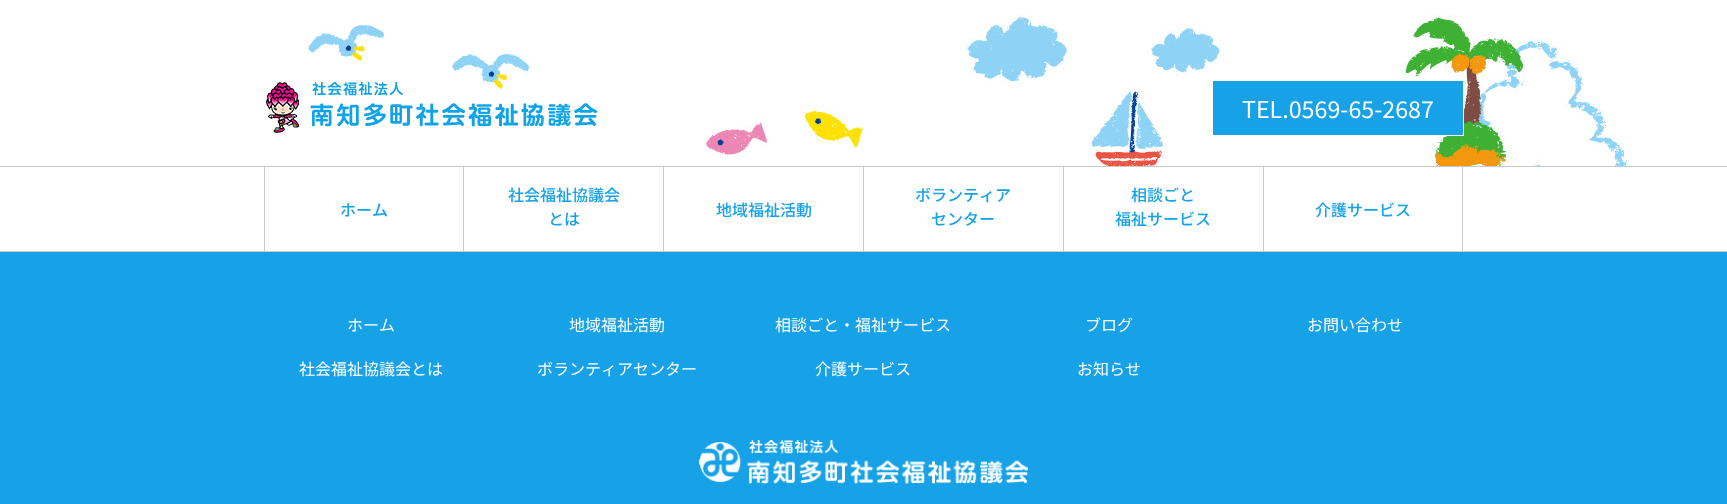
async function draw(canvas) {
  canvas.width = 1727;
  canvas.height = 504;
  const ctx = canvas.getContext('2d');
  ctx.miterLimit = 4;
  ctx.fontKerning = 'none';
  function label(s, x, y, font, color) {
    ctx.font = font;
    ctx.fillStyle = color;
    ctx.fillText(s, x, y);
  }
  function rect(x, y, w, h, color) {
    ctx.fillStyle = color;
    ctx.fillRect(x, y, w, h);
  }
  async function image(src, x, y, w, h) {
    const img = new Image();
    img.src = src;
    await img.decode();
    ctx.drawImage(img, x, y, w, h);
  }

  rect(0, 0, 1727, 504, '#fff');
  await image('assets/img1.png', 304, 14, 1328, 152);
  await image('assets/img2.png', 266, 82, 331, 51);
  ctx.fillStyle = '#17a2e7';
  ctx.beginPath();
  ctx.rect(1212.5, 80.5, 251, 55);
  ctx.fill();
  ctx.strokeStyle = '#fff';
  ctx.stroke();
  label('TEL.0569-65-2687', 1242, 118, '23.25px Noto Sans JP', '#fff');
  rect(0, 166, 1727, 1, '#c9c9c9');
  rect(0, 251, 1727, 1, '#c9c9c9');
  rect(463, 167, 1, 84, '#c9c9c9');
  rect(264, 167, 1, 84, '#c9c9c9');
  label('ホーム', 340, 216, '500 16px Noto Sans JP', '#17a2e7');
  rect(663, 167, 1, 84, '#c9c9c9');
  label('社会福祉協議会', 508, 201, '500 16px Noto Sans JP', '#17a2e7');
  label('とは', 548, 225, '500 16px Noto Sans JP', '#17a2e7');
  rect(863, 167, 1, 84, '#c9c9c9');
  label('地域福祉活動', 716, 216, '500 16px Noto Sans JP', '#17a2e7');
  rect(1063, 167, 1, 84, '#c9c9c9');
  label('ボランティア', 915, 201, '500 16px Noto Sans JP', '#17a2e7');
  label('センター', 931, 225, '500 16px Noto Sans JP', '#17a2e7');
  rect(1263, 167, 1, 84, '#c9c9c9');
  label('相談ごと', 1131, 201, '500 16px Noto Sans JP', '#17a2e7');
  label('福祉サービス', 1115, 225, '500 16px Noto Sans JP', '#17a2e7');
  rect(1462, 167, 1, 84, '#c9c9c9');
  label('介護サービス', 1315, 216, '500 16px Noto Sans JP', '#17a2e7');
  rect(0, 252, 1727, 252, '#17a2e7');
  label('ホーム', 347, 331, '16px Noto Sans JP', '#fff');
  label('社会福祉協議会とは', 299, 375, '16px Noto Sans JP', '#fff');
  label('地域福祉活動', 569, 331, '16px Noto Sans JP', '#fff');
  label('ボランティアセンター', 537, 375, '16px Noto Sans JP', '#fff');
  label('相談ごと・福祉サービス', 775, 331, '16px Noto Sans JP', '#fff');
  label('介護サービス', 815, 375, '16px Noto Sans JP', '#fff');
  label('ブログ', 1085, 331, '16px Noto Sans JP', '#fff');
  label('お知らせ', 1077, 375, '16px Noto Sans JP', '#fff');
  label('お問い合わせ', 1307, 331, '16px Noto Sans JP', '#fff');
  await image('assets/img3.png', 699, 440, 329, 44);
}

draw(document.querySelector('canvas'));
